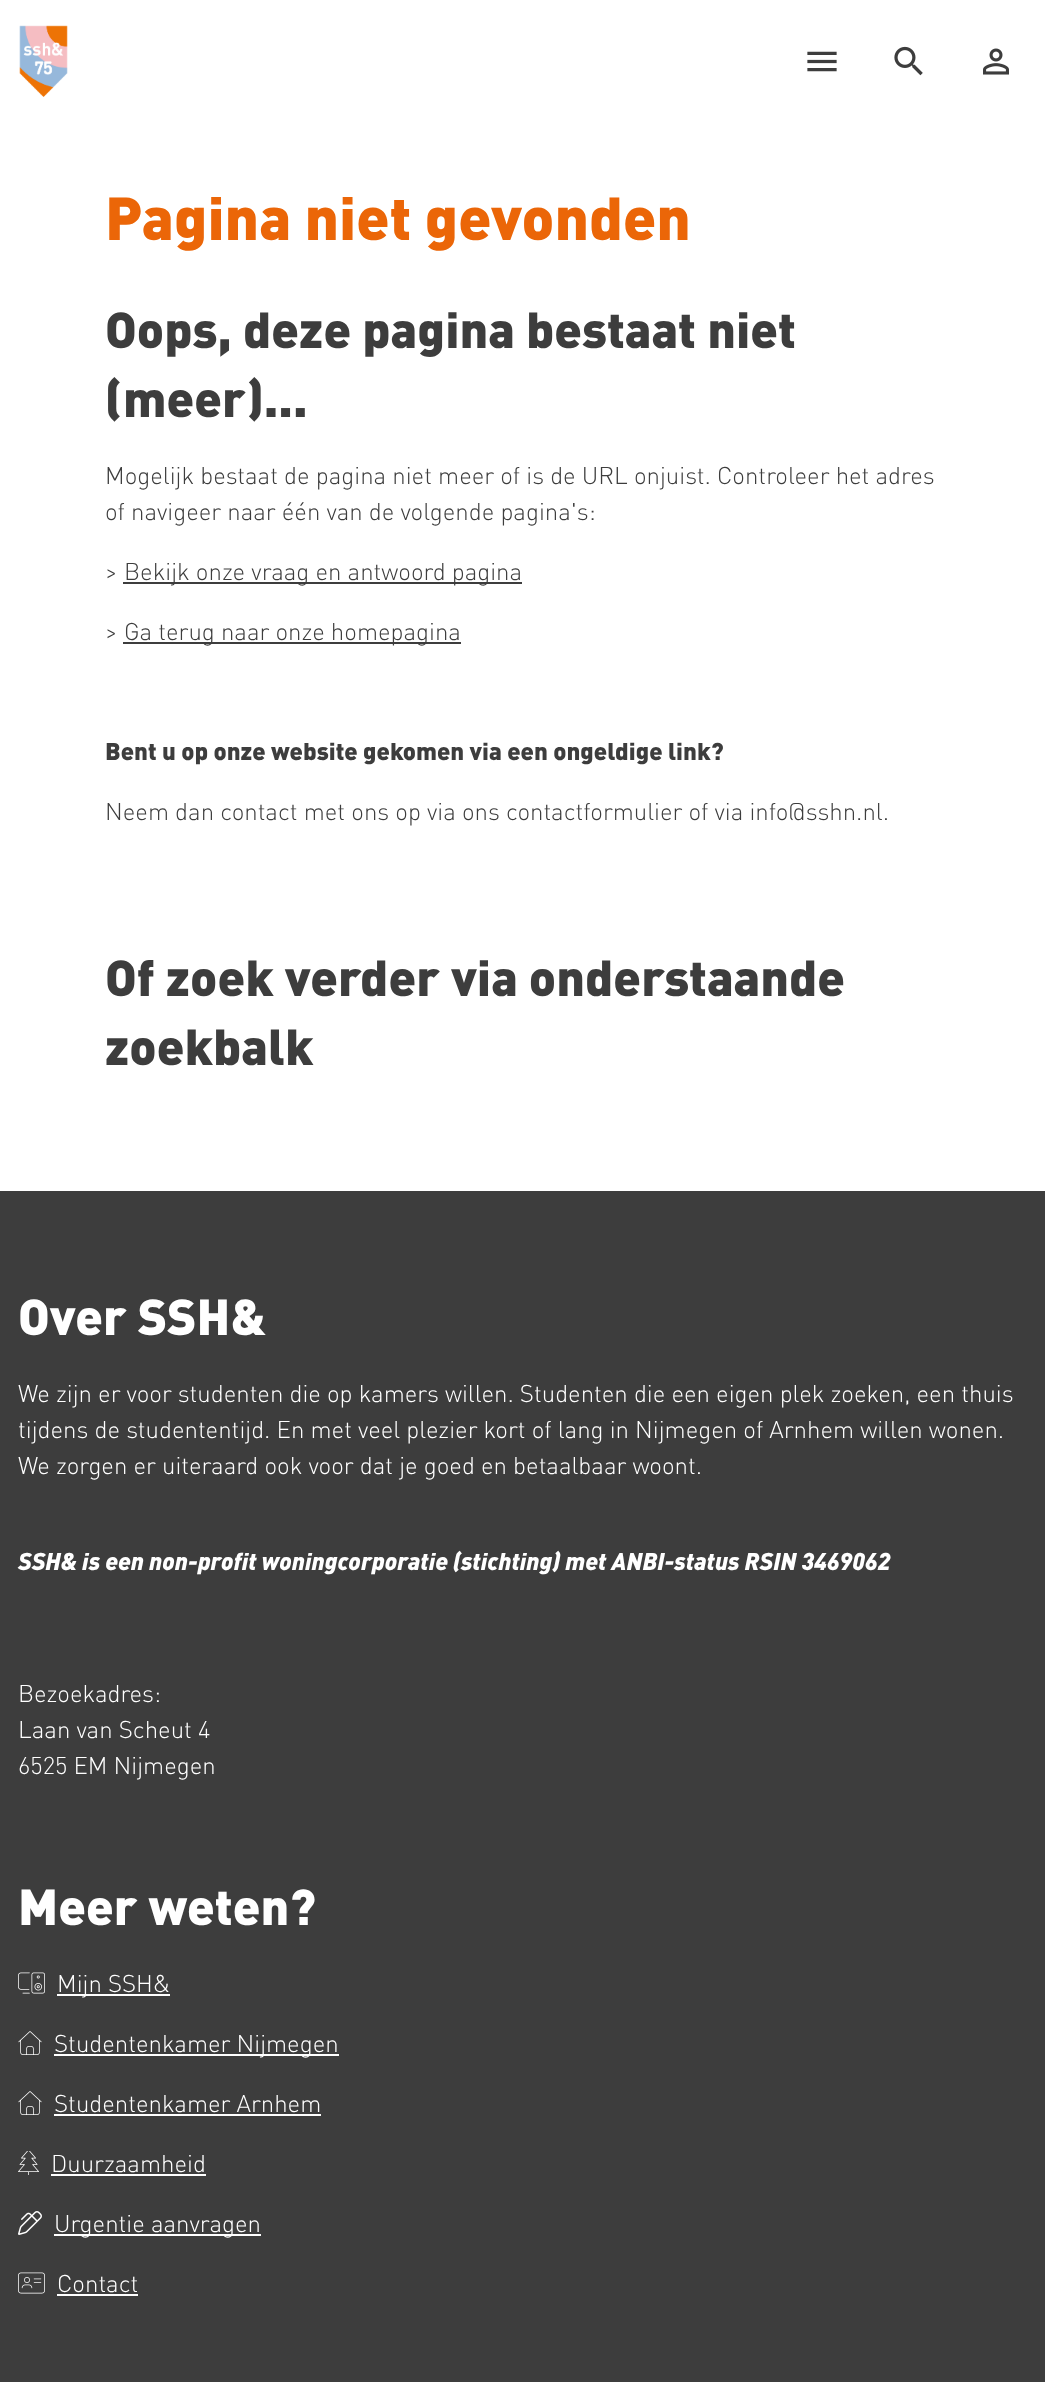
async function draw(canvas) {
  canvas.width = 1045;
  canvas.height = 2382;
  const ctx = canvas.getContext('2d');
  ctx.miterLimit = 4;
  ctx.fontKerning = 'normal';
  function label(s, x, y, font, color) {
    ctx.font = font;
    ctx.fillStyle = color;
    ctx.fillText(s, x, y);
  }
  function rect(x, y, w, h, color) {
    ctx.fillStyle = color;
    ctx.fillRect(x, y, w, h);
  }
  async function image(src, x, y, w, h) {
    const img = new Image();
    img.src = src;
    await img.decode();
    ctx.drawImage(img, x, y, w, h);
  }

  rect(0, 0, 1045, 2382, '#fff');
  await image('assets/img1.png', 19, 25, 49, 72);
  await image('assets/img2.png', 807, 51, 30, 21);
  await image('assets/img3.png', 894, 46, 29, 30);
  await image('assets/img4.png', 983, 48, 26, 27);
  label('Pagina niet gevonden', 105, 240, '900 59.75px DIN', '#eb6608');
  label('Oops, deze pagina bestaat niet', 105, 348, '900 49.75px DIN', '#3d3d3d');
  label('(meer)...', 105, 417, '900 49.75px DIN', '#3d3d3d');
  label('Mogelijk bestaat de pagina niet meer of is de URL onjuist. Controleer het adres', 105, 484, '300 24px DIN', '#3d3d3d');
  label('of navigeer naar één van de volgende pagina\'s:', 105, 520, '300 24px DIN', '#3d3d3d');
  label('>', 105, 580, '300 24px DIN', '#3d3d3d');
  rect(123, 582, 399, 2, '#3d3d3d');
  label('Bekijk onze vraag en antwoord pagina', 124, 580, '300 24px DIN', '#3d3d3d');
  label('>', 105, 640, '300 24px DIN', '#3d3d3d');
  rect(123, 642, 338, 2, '#3d3d3d');
  label('Ga terug naar onze homepagina', 124, 640, '300 24px DIN', '#3d3d3d');
  label('Bent u op onze website gekomen via een ongeldige link?', 105, 760, '900 24px DIN', '#3d3d3d');
  label('Neem dan contact met ons op via ons contactformulier of via info@sshn.nl.', 105, 820, '300 24px DIN', '#3d3d3d');
  label('Of zoek verder via onderstaande', 105, 996, '900 49.75px DIN', '#3d3d3d');
  label('zoekbalk', 105, 1065, '900 49.75px DIN', '#3d3d3d');
  rect(0, 1191, 1045, 1191, '#3d3d3d');
  label('Over SSH&', 18, 1335, '900 49.75px DIN', '#fff');
  label('We zijn er voor studenten die op kamers willen. Studenten die een eigen plek zoeken, een thuis', 18, 1402, '300 24px DIN', '#fff');
  label('tijdens de studententijd. En met veel plezier kort of lang in Nijmegen of Arnhem willen wonen.', 18, 1438, '300 24px DIN', '#fff');
  label('We zorgen er uiteraard ook voor dat je goed en betaalbaar woont.', 18, 1474, '300 24px DIN', '#fff');
  label('SSH& is een non-profit woningcorporatie (stichting) met ANBI-status RSIN 3469062', 18, 1570, 'italic 900 24px DIN', '#fff');
  label('Bezoekadres:', 18, 1702, '300 24px DIN', '#fff');
  label('Laan van Scheut 4', 18, 1738, '300 24px DIN', '#fff');
  label('6525 EM Nijmegen', 18, 1774, '300 24px DIN', '#fff');
  label('Meer weten?', 18, 1925, '900 49.75px DIN', '#fff');
  await image('assets/img5.png', 18, 1972, 27, 22);
  rect(57, 1994, 113, 2, '#fff');
  label('Mijn SSH&', 57, 1992, '300 24px DIN', '#fff');
  await image('assets/img6.png', 18, 2031, 24, 24);
  rect(54, 2054, 285, 2, '#fff');
  label('Studentenkamer Nijmegen', 54, 2052, '300 24px DIN', '#fff');
  await image('assets/img6.png', 18, 2091, 24, 24);
  label('Studentenkamer Arnhem', 54, 2112, '300 24px DIN', '#fff');
  rect(54, 2114, 267, 2, '#fff');
  await image('assets/img7.png', 18, 2151, 21, 24);
  label('Duurzaamheid', 51, 2172, '300 24px DIN', '#fff');
  rect(51, 2174, 155, 2, '#fff');
  await image('assets/img8.png', 18, 2211, 24, 24);
  rect(54, 2234, 207, 2, '#fff');
  label('Urgentie aanvragen', 54, 2232, '300 24px DIN', '#fff');
  await image('assets/img9.png', 18, 2272, 27, 22);
  label('Contact', 57, 2292, '300 24px DIN', '#fff');
  rect(57, 2294, 81, 2, '#fff');
}

draw(document.querySelector('canvas'));
